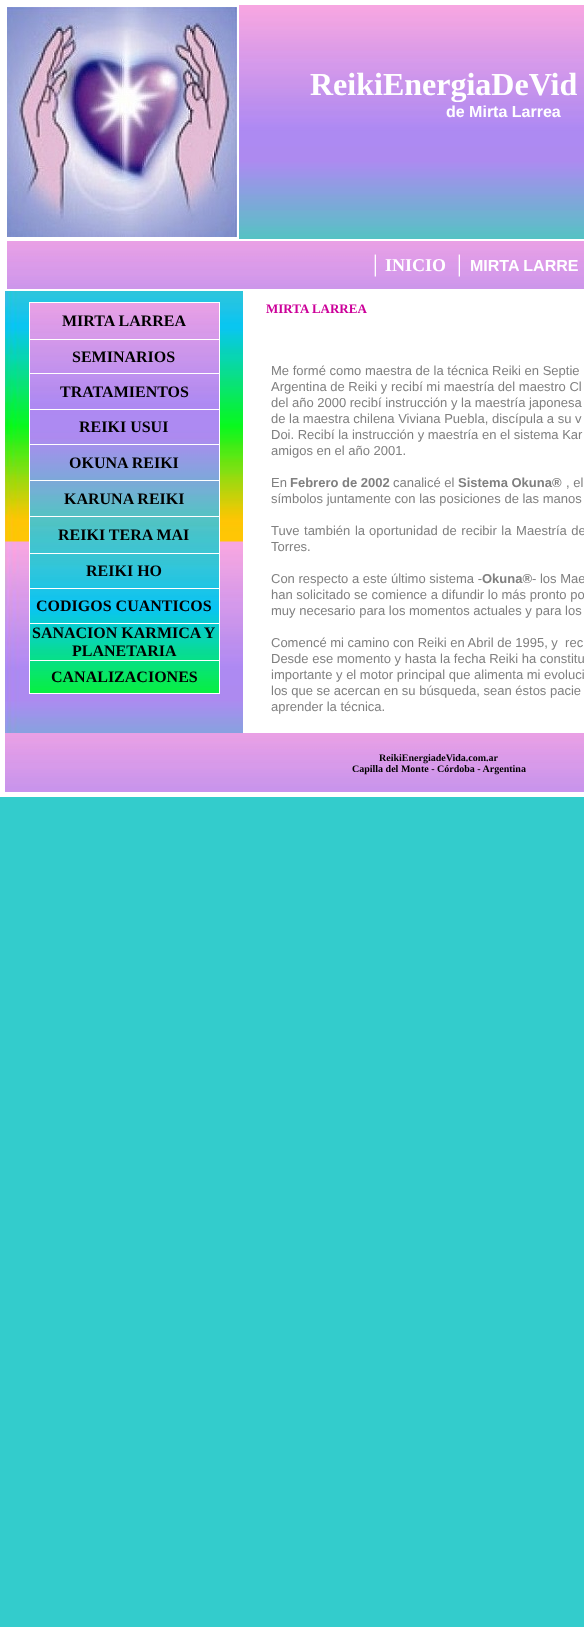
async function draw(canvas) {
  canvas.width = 584;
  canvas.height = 1627;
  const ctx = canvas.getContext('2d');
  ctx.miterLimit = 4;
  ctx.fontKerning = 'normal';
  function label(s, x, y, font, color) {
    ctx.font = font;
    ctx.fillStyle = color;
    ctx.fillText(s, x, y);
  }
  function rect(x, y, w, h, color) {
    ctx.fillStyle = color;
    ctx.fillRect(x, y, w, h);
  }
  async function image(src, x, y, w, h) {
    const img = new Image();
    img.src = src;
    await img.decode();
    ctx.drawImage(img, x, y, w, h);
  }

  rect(0, 0, 584, 1627, '#3cc');
  await image('assets/img1.png', 5, 5, 579, 728);
  rect(0, 0, 584, 5, '#fff');
  rect(0, 792, 584, 5, '#fff');
  rect(0, 0, 5, 797, '#fff');
  rect(5, 5, 234, 2, '#fff');
  rect(237, 5, 2, 234, '#fff');
  rect(5, 237, 234, 2, '#fff');
  rect(5, 5, 2, 234, '#fff');
  await image('assets/img2.png', 7, 7, 230, 230);
  label('ReikiEnergiaDeVid', 310, 95, 'bold 32px Liberation Serif', '#fff');
  label('de Mirta Larrea', 446, 117, 'bold 16px Liberation Sans', '#fff');
  await image('assets/img3.png', 7, 241, 577, 48);
  rect(5, 239, 579, 2, '#fff');
  rect(5, 289, 579, 2, '#fff');
  rect(5, 239, 2, 52, '#fff');
  label('│', 369, 271, 'bold 18px Liberation Serif', '#fff');
  label('INICIO', 385, 271, 'bold 18px Liberation Serif', '#fff');
  label('│', 453, 271, 'bold 18px Liberation Serif', '#fff');
  label('MIRTA LARRE', 470, 271, 'bold 16px Liberation Sans', '#fff');
  await image('assets/img4.png', 30, 303, 189, 390);
  rect(29, 302, 191, 1, '#fff');
  rect(219, 302, 1, 392, '#fff');
  rect(29, 693, 191, 1, '#fff');
  rect(29, 302, 1, 392, '#fff');
  label('MIRTA LARREA', 62, 326, 'bold 16px Liberation Serif', '#000');
  rect(29, 339, 191, 1, '#fff');
  label('SEMINARIOS', 72, 362, 'bold 16px Liberation Serif', '#000');
  rect(29, 373, 191, 1, '#fff');
  label('TRATAMIENTOS', 60, 397, 'bold 16px Liberation Serif', '#000');
  rect(29, 409, 191, 1, '#fff');
  label('REIKI USUI', 79, 432, 'bold 16px Liberation Serif', '#000');
  rect(29, 444, 191, 1, '#fff');
  label('OKUNA REIKI', 69, 468, 'bold 16px Liberation Serif', '#000');
  rect(29, 480, 191, 1, '#fff');
  label('KARUNA REIKI', 64, 504, 'bold 16px Liberation Serif', '#000');
  rect(29, 516, 191, 1, '#fff');
  label('REIKI TERA MAI', 58, 540, 'bold 16px Liberation Serif', '#000');
  rect(29, 553, 191, 1, '#fff');
  label('REIKI HO', 86, 576, 'bold 16px Liberation Serif', '#000');
  rect(29, 588, 191, 1, '#fff');
  label('CODIGOS CUANTICOS', 36, 611, 'bold 16px Liberation Serif', '#000');
  rect(29, 623, 191, 1, '#fff');
  label('SANACION KARMICA Y', 32, 638, 'bold 16px Liberation Serif', '#000');
  label('PLANETARIA', 72, 656, 'bold 16px Liberation Serif', '#000');
  rect(29, 660, 191, 1, '#fff');
  label('CANALIZACIONES', 51, 682, 'bold 16px Liberation Serif', '#000');
  rect(243, 291, 341, 442, '#fff');
  label('MIRTA LARREA', 266, 313, 'bold 13px Liberation Serif', '#c09');
  label('Me formé como maestra de la técnica Reiki en Septie', 271, 375, '13px Liberation Sans', '#808080');
  label('Argentina de Reiki y recibí mi maestría del maestro Cl', 271, 391, '13px Liberation Sans', '#808080');
  label('del año 2000 recibí instrucción y la maestría japonesa', 271, 407, '13px Liberation Sans', '#808080');
  label('de la maestra chilena Viviana Puebla, discípula a su v', 271, 423, '13px Liberation Sans', '#808080');
  label('Doi. Recibí la instrucción y maestría en el sistema Kar', 271, 439, '13px Liberation Sans', '#808080');
  label('amigos en el año 2001.', 271, 455, '13px Liberation Sans', '#808080');
  label('En', 271, 487, '13px Liberation Sans', '#808080');
  label('Febrero de 2002', 290, 487, 'bold 13px Liberation Sans', '#808080');
  label('canalicé el', 393, 487, '13px Liberation Sans', '#808080');
  label('Sistema Okuna®', 458, 487, 'bold 13px Liberation Sans', '#808080');
  label(', el', 566, 487, '13px Liberation Sans', '#808080');
  label('símbolos juntamente con las posiciones de las manos', 271, 503, '13px Liberation Sans', '#808080');
  ctx.wordSpacing = '1px';
  label('Tuve también la', 271, 535, '13px Liberation Sans', '#808080');
  label('oportunidad de recibir la', 369, 535, '13px Liberation Sans', '#808080');
  ctx.wordSpacing = '0px';
  label('M', 516, 535, '13px Liberation Sans', '#808080');
  ctx.wordSpacing = '1px';
  label('aestría de', 527, 535, '13px Liberation Sans', '#808080');
  ctx.wordSpacing = '0px';
  label('Torres.', 271, 551, '13px Liberation Sans', '#808080');
  label('Con respecto a este último sistema -', 271, 583, '13px Liberation Sans', '#808080');
  label('Okuna®', 482, 583, 'bold 13px Liberation Sans', '#808080');
  label('- los Mae', 532, 583, '13px Liberation Sans', '#808080');
  label('han solicitado se comience a difundir lo más pronto po', 271, 599, '13px Liberation Sans', '#808080');
  label('muy necesario para los momentos actuales y para los', 271, 615, '13px Liberation Sans', '#808080');
  label('Comencé mi camino con Reiki en Abril de 1995, y  rec', 271, 647, '13px Liberation Sans', '#808080');
  label('Desde ese momento y hasta la fecha Reiki ha constitu', 271, 663, '13px Liberation Sans', '#808080');
  label('importante y el motor principal que alimenta mi evoluci', 271, 679, '13px Liberation Sans', '#808080');
  label('los que se acercan en su búsqueda, sean éstos pacie', 271, 695, '13px Liberation Sans', '#808080');
  label('aprender la técnica.', 271, 711, '13px Liberation Sans', '#808080');
  await image('assets/img5.png', 5, 733, 579, 59);
  label('ReikiEnergiadeVida.com.ar', 379, 761, 'bold 10px Liberation Serif', '#000');
  label('Capilla del Monte - Córdoba - Argentina', 352, 772, 'bold 10px Liberation Serif', '#000');
}

draw(document.querySelector('canvas'));
